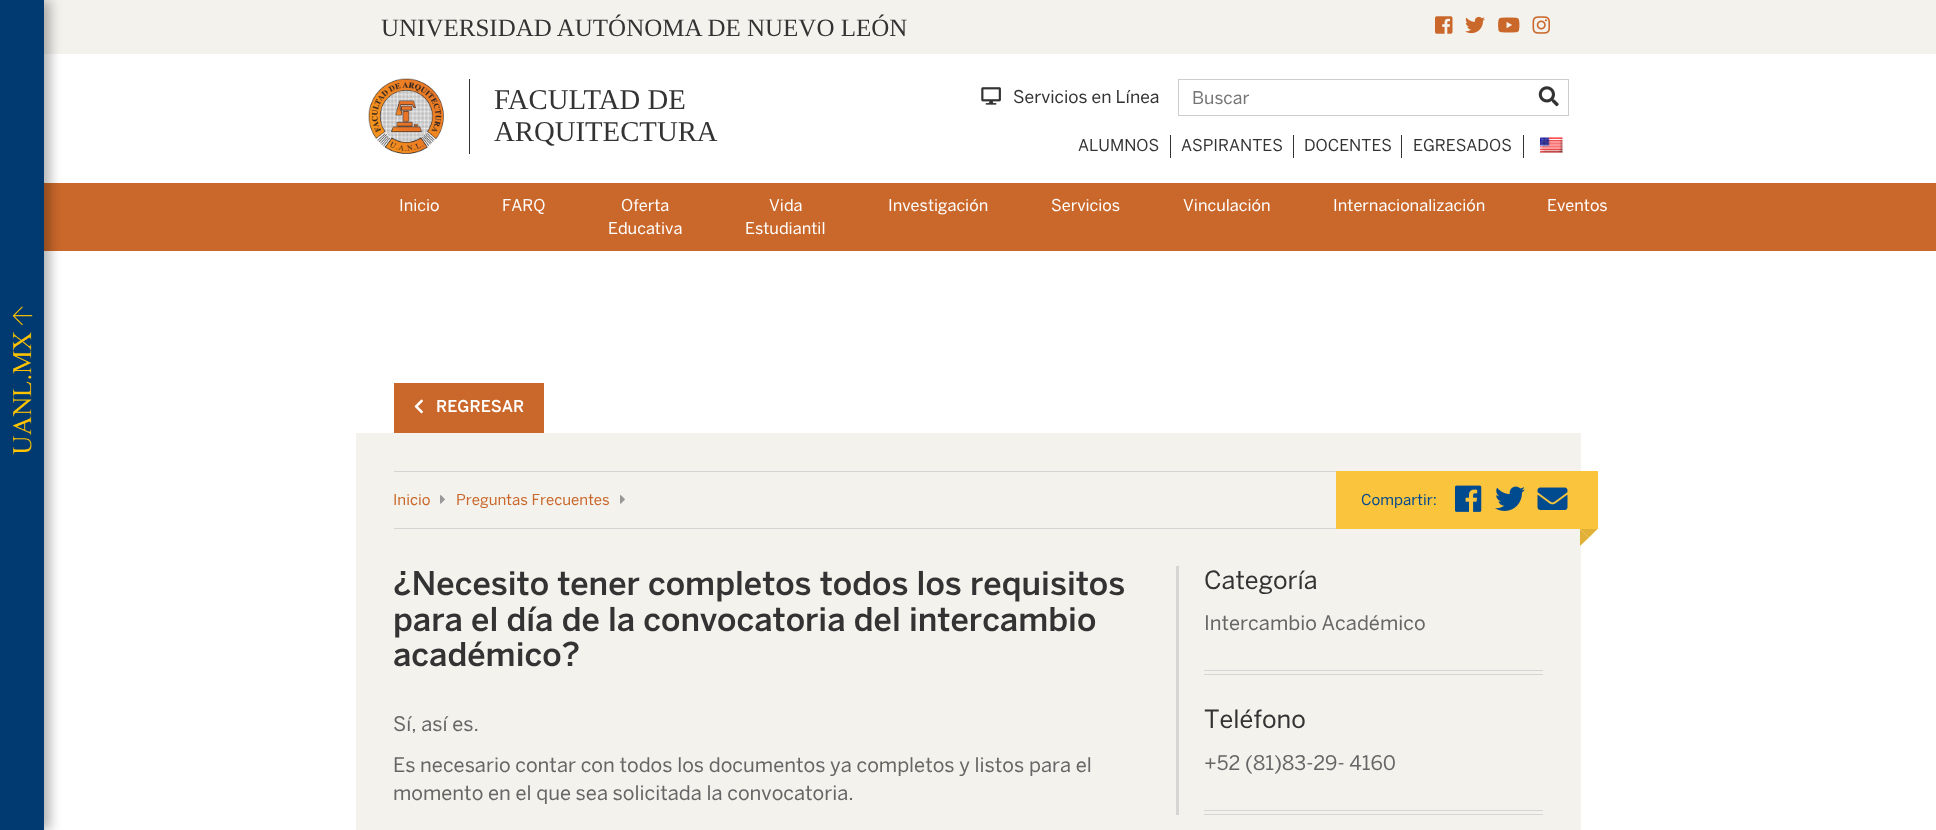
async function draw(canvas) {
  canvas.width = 1936;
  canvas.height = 830;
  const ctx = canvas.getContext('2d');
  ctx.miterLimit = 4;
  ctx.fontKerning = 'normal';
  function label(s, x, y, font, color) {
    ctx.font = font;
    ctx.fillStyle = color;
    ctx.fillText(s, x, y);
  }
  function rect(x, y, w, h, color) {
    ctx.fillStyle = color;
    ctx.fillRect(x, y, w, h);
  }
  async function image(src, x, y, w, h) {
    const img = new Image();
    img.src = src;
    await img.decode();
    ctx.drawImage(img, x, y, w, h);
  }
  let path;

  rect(0, 0, 1936, 830, '#fff');
  rect(44, 0, 1892, 54, '#f4f2ed');
  rect(44, 183, 1892, 68, '#ca682b');
  ctx.fillStyle = '#0000004d';
  ctx.filter = 'blur(6px)';
  ctx.beginPath();
  ctx.rect(6, 0, 44, 830);
  ctx.fill();
  ctx.filter = 'none';
  rect(0, 0, 44, 830, '#003a71');
  await image('assets/img1.png', 13, 306, 20, 149);
  label('UNIVERSIDAD AUTÓNOMA DE NUEVO LEÓN', 381, 36, '25px Liberation Serif', '#333');
  await image('assets/img2.png', 1435, 16, 18, 18);
  await image('assets/img3.png', 1465, 16, 20, 18);
  await image('assets/img4.png', 1498, 17, 22, 16);
  await image('assets/img5.png', 1532, 16, 18, 18);
  await image('assets/img6.png', 368, 78, 76, 76);
  rect(469, 79, 1, 75, '#333');
  label('FACULTAD DE', 494, 109, '28.75px Liberation Serif', '#333');
  label('ARQUITECTURA', 494, 141, '28.75px Liberation Serif', '#333');
  await image('assets/img7.png', 981, 87, 20, 18);
  label('Servicios en Línea', 1013, 103, '17.5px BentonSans', '#333');
  ctx.strokeStyle = '#cdcdcd';
  ctx.strokeRect(1178.5, 79.5, 390, 36);
  label('Buscar', 1192, 104, '17.5px BentonSans', '#757575');
  await image('assets/img8.png', 1538, 86, 21, 21);
  label('ALUMNOS', 1078, 151, '16.25px BentonSans', '#333');
  rect(1170, 135, 1, 23, '#333');
  label('ASPIRANTES', 1181, 151, '16.25px BentonSans', '#333');
  rect(1293, 135, 1, 23, '#333');
  label('DOCENTES', 1304, 151, '16.25px BentonSans', '#333');
  rect(1401, 135, 1, 23, '#333');
  label('EGRESADOS', 1413, 151, '16.25px BentonSans', '#333');
  rect(1523, 135, 1, 23, '#333');
  await image('assets/img9.png', 1540, 137, 23, 16);
  label('Inicio', 399, 211, '16.25px BentonSans', '#fff');
  label('FARQ', 502, 211, '16.25px BentonSans', '#fff');
  label('Oferta', 621, 211, '16.25px BentonSans', '#fff');
  label('Educativa', 608, 234, '16.25px BentonSans', '#fff');
  label('Vida', 769, 211, '16.25px BentonSans', '#fff');
  label('Estudiantil', 745, 234, '16.25px BentonSans', '#fff');
  label('Investigación', 888, 211, '16.25px BentonSans', '#fff');
  label('Servicios', 1051, 211, '16.25px BentonSans', '#fff');
  label('Vinculación', 1183, 211, '16.25px BentonSans', '#fff');
  label('Internacionalización', 1333, 211, '16.25px BentonSans', '#fff');
  label('Eventos', 1547, 211, '16.25px BentonSans', '#fff');
  rect(356, 433, 1225, 397, '#f4f2ed');
  rect(394, 383, 150, 50, '#ca682b');
  await image('assets/img10.png', 414, 399, 9, 15);
  label('REGRESAR', 436, 412, '500 16.25px BentonSans', '#fff');
  rect(394, 471, 942, 1, '#d5d5d5');
  rect(394, 528, 942, 1, '#d5d5d5');
  label('Inicio', 393, 505, '15px BentonSans', '#ca682b');
  await image('assets/img11.png', 440, 495, 5, 9);
  label('Preguntas Frecuentes', 456, 505, '15px BentonSans', '#ca682b');
  await image('assets/img11.png', 620, 495, 5, 9);
  rect(1336, 471, 262, 58, '#fbc43d');
  label('Compartir:', 1361, 505, '15px BentonSans', '#004a8f');
  await image('assets/img12.png', 1455, 485, 27, 27);
  await image('assets/img13.png', 1495, 486, 30, 25);
  await image('assets/img14.png', 1537, 487, 31, 23);
  ctx.fillStyle = '#e1b036';
  path = new Path2D('M1580 529H1597.5L1589 537.5Z');
  ctx.fill(path);
  path = new Path2D('M1580 546V529L1589 537.5Z');
  ctx.fill(path);
  label('¿Necesito tener completos todos los requisitos', 393, 595, '500 32.5px BentonSans', '#333');
  label('para el día de la convocatoria del intercambio', 393, 631, '500 32.5px BentonSans', '#333');
  label('académico?', 393, 666, '500 32.5px BentonSans', '#333');
  label('Sí, así es.', 393, 731, '20px BentonSans', '#666');
  label('Es necesario contar con todos los documentos ya completos y listos para el', 393, 772, '20px BentonSans', '#666');
  label('momento en el que sea solicitada la convocatoria.', 393, 800, '20px BentonSans', '#666');
  rect(1176, 566, 3, 249, '#d5d5d5');
  label('Categoría', 1204, 589, '25px BentonSans', '#333');
  label('Intercambio Académico', 1204, 630, '20px BentonSans', '#666');
  rect(1204, 670, 339, 1, '#d5d5d5');
  rect(1204, 674, 339, 1, '#d5d5d5');
  label('Teléfono', 1204, 728, '25px BentonSans', '#333');
  label('+52 (81)83-29- 4160', 1204, 770, '20px BentonSans', '#666');
  rect(1204, 810, 339, 1, '#d5d5d5');
  rect(1204, 814, 339, 1, '#d5d5d5');
}

draw(document.querySelector('canvas'));
